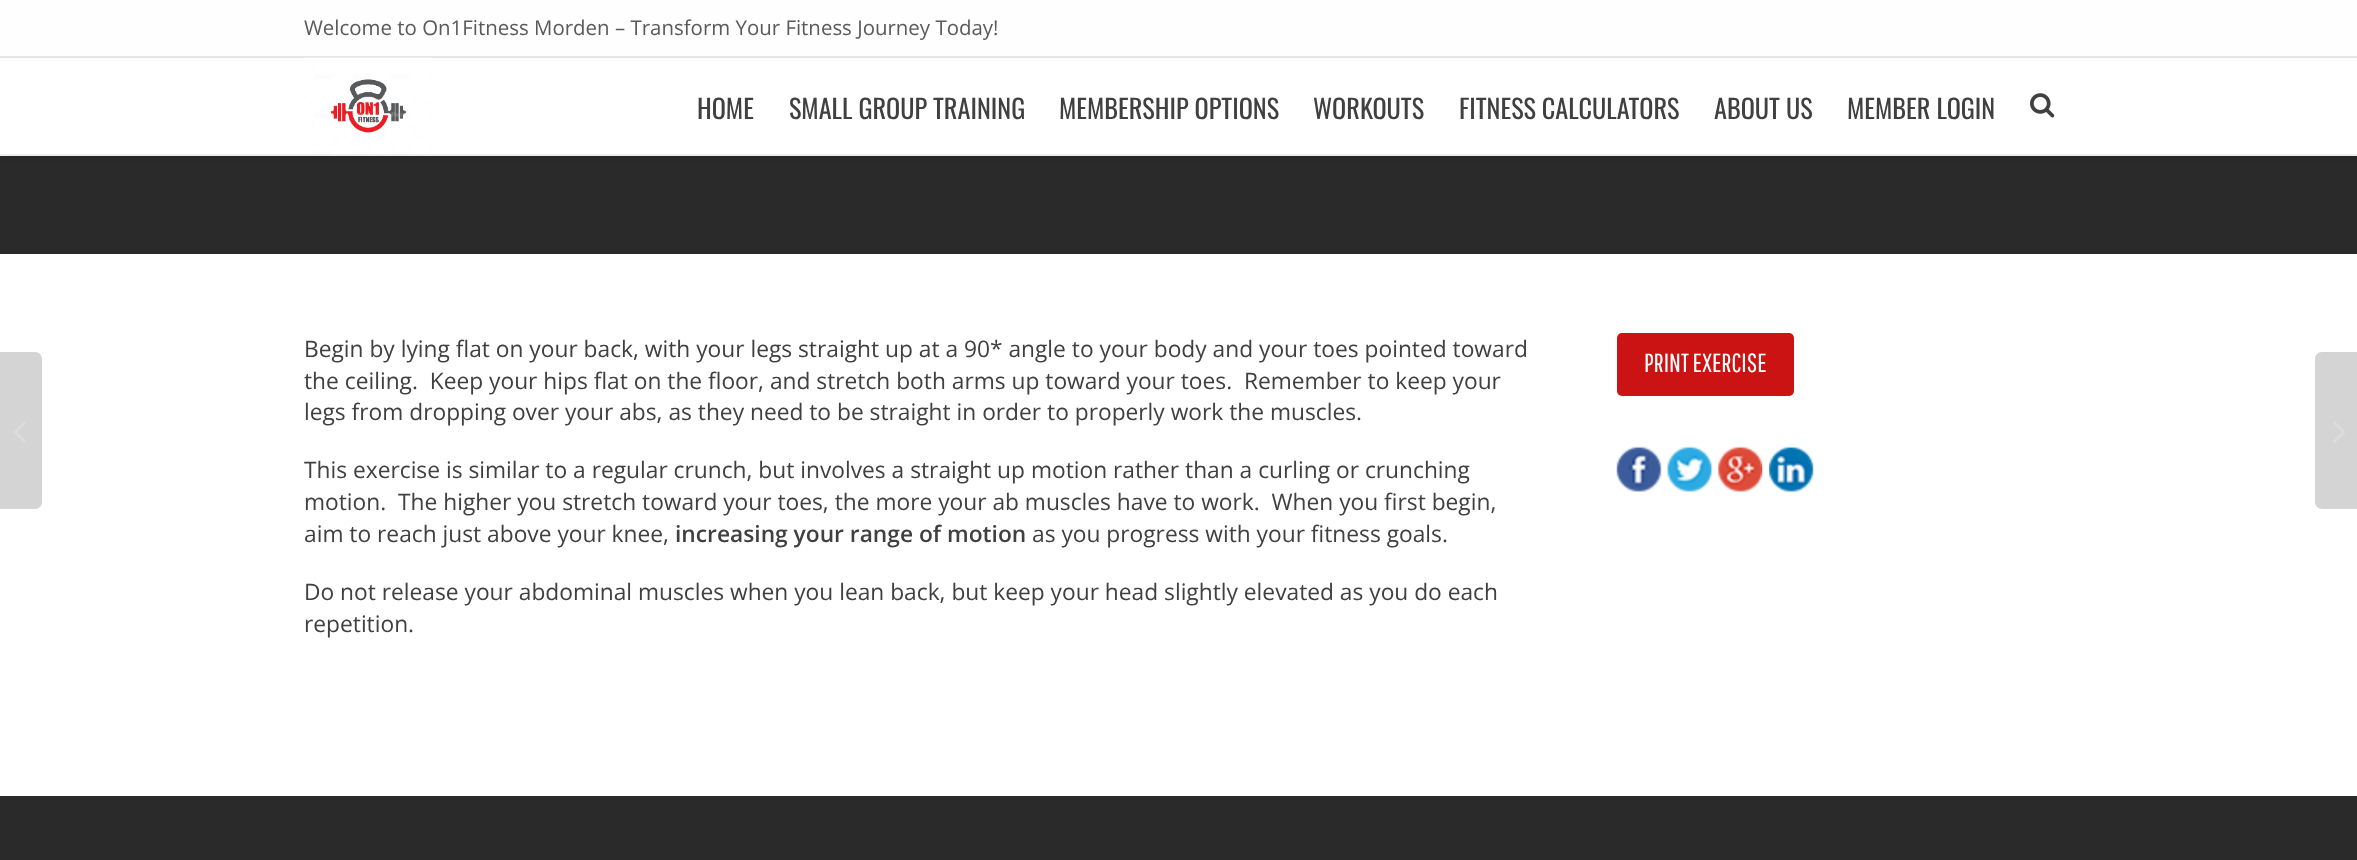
async function draw(canvas) {
  canvas.width = 2357;
  canvas.height = 860;
  const ctx = canvas.getContext('2d');
  ctx.miterLimit = 4;
  ctx.fontKerning = 'normal';
  function label(s, x, y, font, color) {
    ctx.font = font;
    ctx.fillStyle = color;
    ctx.fillText(s, x, y);
  }
  function rect(x, y, w, h, color) {
    ctx.fillStyle = color;
    ctx.fillRect(x, y, w, h);
  }
  function roundedRect(x, y, w, h, r, color) {
    ctx.fillStyle = color;
    ctx.beginPath();
    ctx.roundRect(x, y, w, h, r);
    ctx.fill();
  }
  async function image(src, x, y, w, h) {
    const img = new Image();
    img.src = src;
    await img.decode();
    ctx.drawImage(img, x, y, w, h);
  }
  let path;

  rect(0, 0, 2357, 860, '#fff');
  rect(0, 156, 2357, 98, '#2a2a2a');
  ctx.fillStyle = '#0000001a';
  ctx.filter = 'blur(4.5px)';
  ctx.beginPath();
  ctx.rect(0, 2, 2357, 156);
  ctx.fill();
  ctx.filter = 'none';
  rect(0, 0, 2357, 56, '#fefefe');
  rect(0, 56, 2357, 2, '#e6e6e6');
  label('Welcome to On1Fitness Morden – Transform Your Fitness Journey Today!', 304, 35, '20.45px Open Sans', '#5a5a5a');
  rect(0, 58, 2357, 96, '#fff');
  rect(0, 154, 2357, 2, '#eee');
  await image('assets/img1.png', 305, 57, 127, 97);
  label('HOME', 697, 119, '26.25px Oswald', '#404040');
  label('SMALL GROUP TRAINING', 789, 119, '26.25px Oswald', '#404040');
  label('MEMBERSHIP OPTIONS', 1059, 119, '26.25px Oswald', '#404040');
  label('WORKOUTS', 1313, 119, '26.25px Oswald', '#404040');
  label('FITNESS CALCULATORS', 1459, 119, '26.25px Oswald', '#404040');
  label('ABOUT US', 1714, 119, '26.25px Oswald', '#404040');
  label('MEMBER LOGIN', 1847, 119, '26.25px Oswald', '#404040');
  await image('assets/img2.png', 2030, 93, 25, 25);
  ctx.fillStyle = '#d4d4d4';
  path = new Path2D('M-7 352H35C39 352 42 355 42 359V502C42 506 39 509 35 509H-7Z');
  ctx.fill(path);
  await image('assets/img3.png', 13, 422, 13, 21);
  label('Begin by lying flat on your back, with your legs straight up at a 90* angle to your body and your toes pointed toward', 304, 357, '22.75px Open Sans', '#404040');
  label('the ceiling.  Keep your hips flat on the floor, and stretch both arms up toward your toes.  Remember to keep your', 304, 389, '22.75px Open Sans', '#404040');
  label('legs from dropping over your abs, as they need to be straight in order to properly work the muscles.', 304, 420, '22.75px Open Sans', '#404040');
  label('This exercise is similar to a regular crunch, but involves a straight up motion rather than a curling or crunching', 304, 478, '22.75px Open Sans', '#404040');
  label('motion.  The higher you stretch toward your toes, the more your ab muscles have to work.  When you first begin,', 304, 510, '22.75px Open Sans', '#404040');
  label('aim to reach just above your knee,', 304, 542, '22.75px Open Sans', '#404040');
  label('increasing your range of motion', 675, 542, '600 22.75px Open Sans', '#404040');
  label('as you progress with your fitness goals.', 1032, 542, '22.75px Open Sans', '#404040');
  label('Do not release your abdominal muscles when you lean back, but keep your head slightly elevated as you do each', 304, 600, '22.75px Open Sans', '#404040');
  label('repetition.', 304, 632, '22.75px Open Sans', '#404040');
  roundedRect(1617, 333, 177, 63, 5, '#cb1313');
  label('PRINT EXERCISE', 1644, 372, '26.25px Pathway Gothic One', '#fff');
  await image('assets/img4.png', 1616, 446, 46, 46);
  await image('assets/img5.png', 1667, 446, 46, 46);
  await image('assets/img6.png', 1718, 446, 45, 46);
  await image('assets/img7.png', 1769, 446, 45, 46);
  ctx.fillStyle = '#d4d4d4';
  path = new Path2D('M2322 352H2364V509H2322C2318 509 2315 506 2315 502V359C2315 355 2318 352 2322 352Z');
  ctx.fill(path);
  await image('assets/img8.png', 2333, 422, 12, 21);
  rect(0, 796, 2357, 64, '#2a2a2a');
}

draw(document.querySelector('canvas'));
